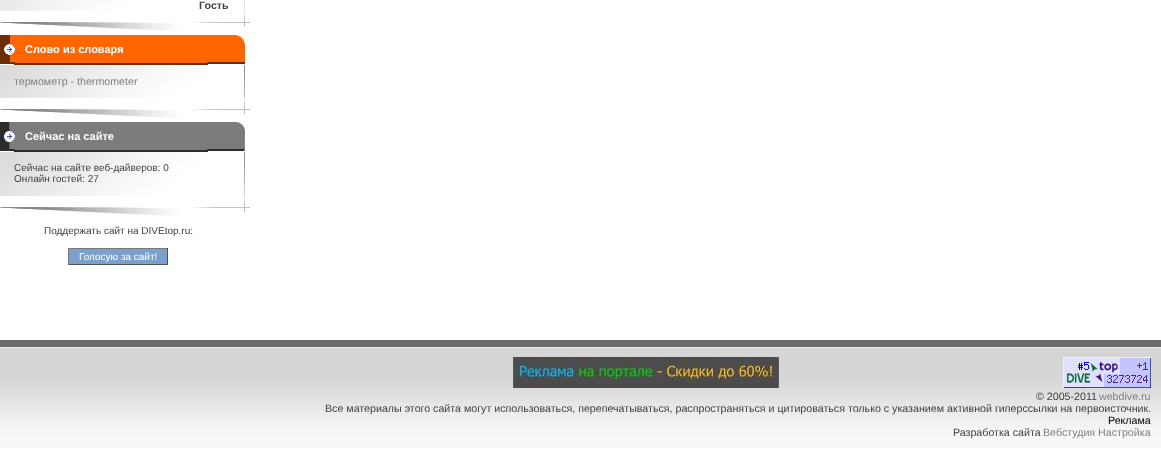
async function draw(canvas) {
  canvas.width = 1161;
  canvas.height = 456;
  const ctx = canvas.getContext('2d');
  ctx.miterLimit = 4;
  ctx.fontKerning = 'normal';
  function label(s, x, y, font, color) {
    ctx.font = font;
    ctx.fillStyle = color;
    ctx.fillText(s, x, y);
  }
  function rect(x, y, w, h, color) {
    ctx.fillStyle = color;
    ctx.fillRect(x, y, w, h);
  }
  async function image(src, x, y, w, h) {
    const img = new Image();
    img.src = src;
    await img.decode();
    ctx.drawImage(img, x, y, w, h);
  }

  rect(0, 0, 1161, 456, '#fff');
  await image('assets/img1.png', 0, 0, 245, 11);
  label('Гость', 199, 9, 'bold 10.67px Liberation Sans', '#414141');
  await image('assets/img2.png', 0, 11, 250, 20);
  rect(15, 35, 192, 28, '#f60');
  rect(14, 63, 194, 2, '#6d2d02');
  await image('assets/img3.png', 0, 35, 15, 29);
  label('Слово из словаря', 25, 53, 'bold 11px Liberation Sans', '#fff');
  await image('assets/img4.png', 207, 35, 38, 29);
  await image('assets/img5.png', 0, 65, 245, 33);
  label('термометр - thermometer', 14, 85, '10.67px Liberation Sans', '#808080');
  await image('assets/img2.png', 0, 98, 250, 20);
  rect(15, 122, 192, 28, '#7c7c7c');
  rect(14, 150, 194, 2, '#2c2c2c');
  await image('assets/img6.png', 0, 122, 15, 29);
  label('Сейчас на сайте', 25, 140, 'bold 11px Liberation Sans', '#fff');
  await image('assets/img7.png', 207, 122, 43, 29);
  await image('assets/img8.png', 0, 152, 245, 44);
  label('Сейчас на сайте веб-дайверов: 0', 14, 171, '10px Liberation Sans', '#414141');
  label('Онлайн гостей: 27', 14, 182, '10px Liberation Sans', '#414141');
  await image('assets/img2.png', 0, 196, 250, 20);
  label('Поддержать сайт на DIVEtop.ru:', 44, 234, '10px Liberation Sans', '#414141');
  rect(69, 249, 98, 15, '#7ba0cc');
  rect(68, 248, 100, 1, '#787878');
  rect(167, 248, 1, 17, '#505050');
  rect(68, 264, 100, 1, '#505050');
  rect(68, 248, 1, 17, '#787878');
  label('Голосую за сайт!', 79, 260, '10px Liberation Sans', '#fff');
  await image('assets/img9.png', 0, 347, 1161, 101);
  rect(0, 340, 1161, 7, '#6c6c6c');
  await image('assets/img10.png', 513, 357, 266, 31);
  await image('assets/img11.png', 1063, 357, 88, 31);
  label('© 2005-2011', 1036, 400, '10.67px Liberation Sans', '#414141');
  label('webdive.ru', 1099, 400, '10.67px Liberation Sans', '#808080');
  label('Все материалы этого сайта могут использоваться, перепечатываться, распространяться и цитироваться только с указанием активной гиперссылки на первоисточник.', 325, 412, '10.67px Liberation Sans', '#414141');
  label('Реклама', 1108, 424, '10.67px Liberation Sans', '#000');
  label('Разработка сайта', 953, 436, '10.67px Liberation Sans', '#414141');
  label('Вебстудия Настройка', 1043, 436, '10.67px Liberation Sans', '#808080');
}

draw(document.querySelector('canvas'));
